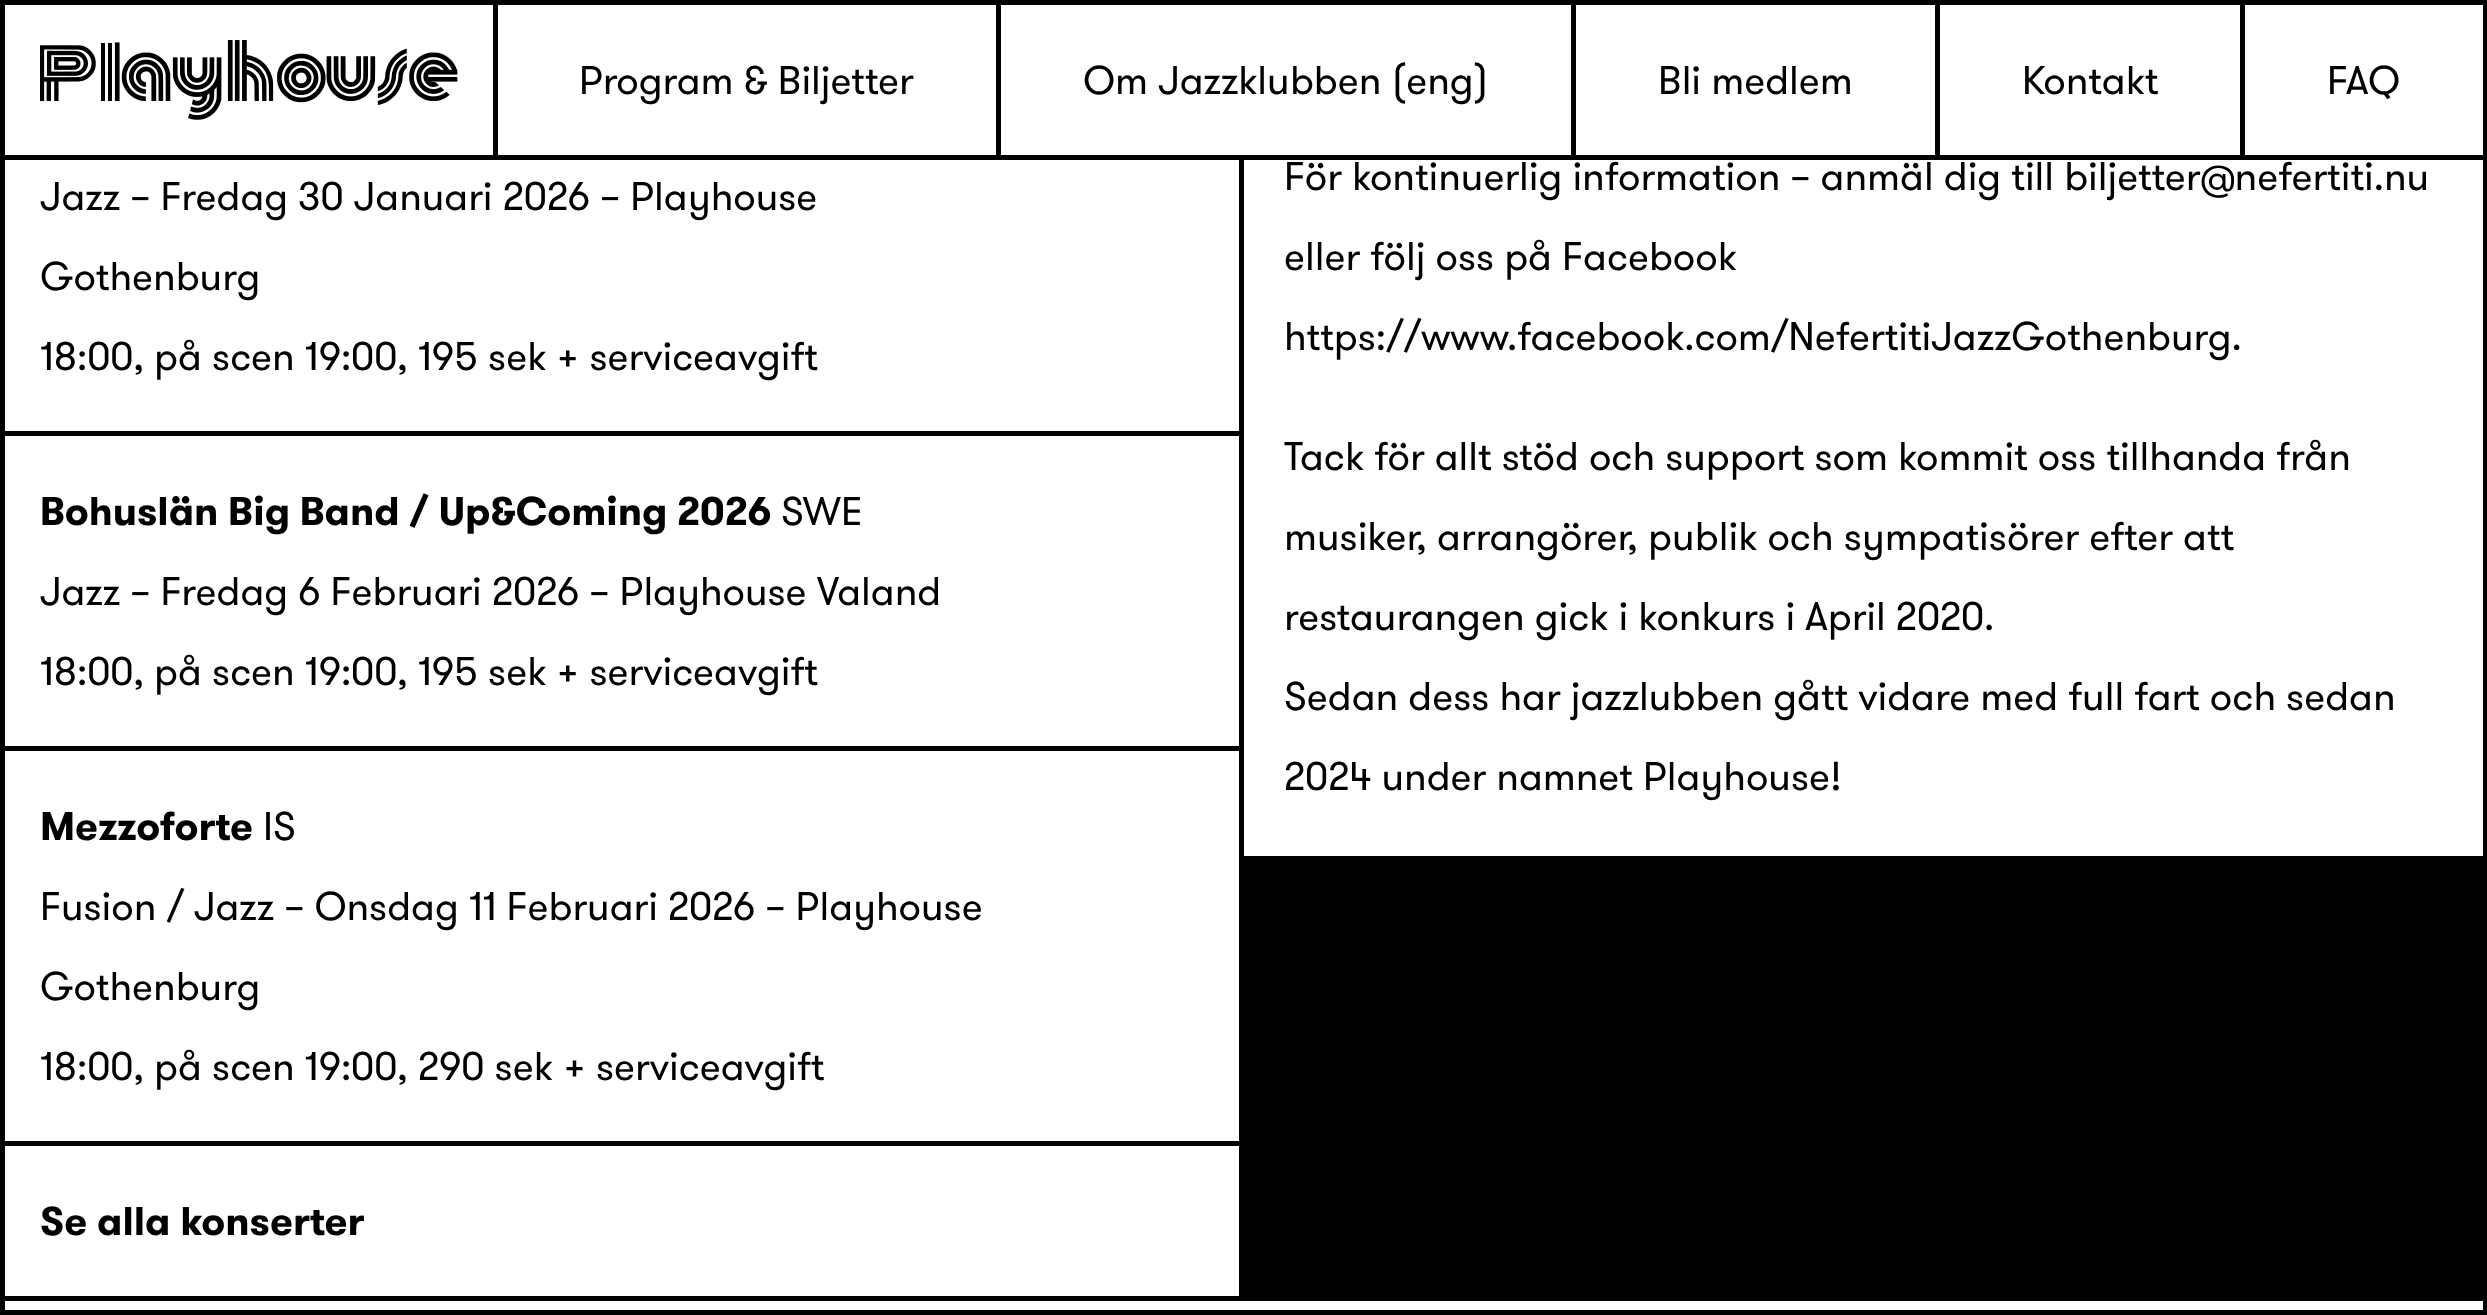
async function draw(canvas) {
  canvas.width = 2487;
  canvas.height = 1315;
  const ctx = canvas.getContext('2d');
  ctx.miterLimit = 4;
  ctx.fontKerning = 'normal';
  function label(s, x, y, font, color) {
    ctx.font = font;
    ctx.fillStyle = color;
    ctx.fillText(s, x, y);
  }
  function rect(x, y, w, h, color) {
    ctx.fillStyle = color;
    ctx.fillRect(x, y, w, h);
  }
  async function image(src, x, y, w, h) {
    const img = new Image();
    img.src = src;
    await img.decode();
    ctx.drawImage(img, x, y, w, h);
  }

  rect(0, 0, 2487, 1315, '#fff');
  rect(0, 0, 2487, 5, '#000');
  rect(0, 155, 2487, 5, '#000');
  rect(0, 1310, 2487, 5, '#000');
  rect(0, 0, 5, 1315, '#000');
  rect(493, 5, 5, 155, '#000');
  await image('assets/img1.png', 40, 40, 418, 80);
  rect(996, 5, 5, 150, '#000');
  label('Program & Biljetter', 579, 94, '40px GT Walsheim', '#000');
  rect(1571, 5, 5, 150, '#000');
  label('Om Jazzklubben (eng)', 1083, 94, '40px GT Walsheim', '#000');
  rect(1935, 5, 5, 150, '#000');
  label('Bli medlem', 1658, 94, '40px GT Walsheim', '#000');
  rect(2240, 5, 5, 150, '#000');
  label('Kontakt', 2022, 94, '40px GT Walsheim', '#000');
  label('FAQ', 2327, 94, '40px GT Walsheim', '#000');
  rect(1244, 856, 1243, 5, '#000');
  rect(2483, 0, 4, 1315, '#000');
  rect(1244, 861, 1239, 440, '#000');
  rect(1239, 160, 5, 1141, '#000');
  rect(5, 431, 1234, 5, '#000');
  label('Jazz – Fredag 30 Januari 2026 – Playhouse', 40, 210, '40px GT Walsheim', '#000');
  label('Gothenburg', 40, 290, '40px GT Walsheim', '#000');
  label('18:00, på scen 19:00, 195 sek + serviceavgift', 40, 370, '40px GT Walsheim', '#000');
  rect(5, 746, 1234, 5, '#000');
  label('Bohuslän Big Band / Up&Coming 2026', 40, 525, 'bold 40px GT Walsheim', '#000');
  label('SWE', 781, 525, '40px GT Walsheim', '#000');
  label('Jazz – Fredag 6 Februari 2026 – Playhouse Valand', 40, 605, '40px GT Walsheim', '#000');
  label('18:00, på scen 19:00, 195 sek + serviceavgift', 40, 685, '40px GT Walsheim', '#000');
  rect(5, 1141, 1234, 5, '#000');
  label('Mezzoforte', 40, 840, 'bold 40px GT Walsheim', '#000');
  label('IS', 263, 840, '40px GT Walsheim', '#000');
  label('Fusion / Jazz – Onsdag 11 Februari 2026 – Playhouse', 40, 920, '40px GT Walsheim', '#000');
  label('Gothenburg', 40, 1000, '40px GT Walsheim', '#000');
  label('18:00, på scen 19:00, 290 sek + serviceavgift', 40, 1080, '40px GT Walsheim', '#000');
  rect(5, 1296, 1234, 5, '#000');
  label('Se alla konserter', 40, 1235, 'bold 40px GT Walsheim', '#000');
  label('För kontinuerlig information – anmäl dig till biljetter@nefertiti.nu', 1284, 190, '40px GT Walsheim', '#000');
  label('eller följ oss på Facebook', 1284, 270, '40px GT Walsheim', '#000');
  label('https://www.facebook.com/NefertitiJazzGothenburg.', 1284, 350, '40px GT Walsheim', '#000');
  label('Tack för allt stöd och support som kommit oss tillhanda från', 1284, 470, '40px GT Walsheim', '#000');
  label('musiker, arrangörer, publik och sympatisörer efter att', 1284, 550, '40px GT Walsheim', '#000');
  label('restaurangen gick i konkurs i April 2020.', 1284, 630, '40px GT Walsheim', '#000');
  label('Sedan dess har jazzlubben gått vidare med full fart och sedan', 1284, 710, '40px GT Walsheim', '#000');
  label('2024 under namnet Playhouse!', 1284, 790, '40px GT Walsheim', '#000');
}

draw(document.querySelector('canvas'));
